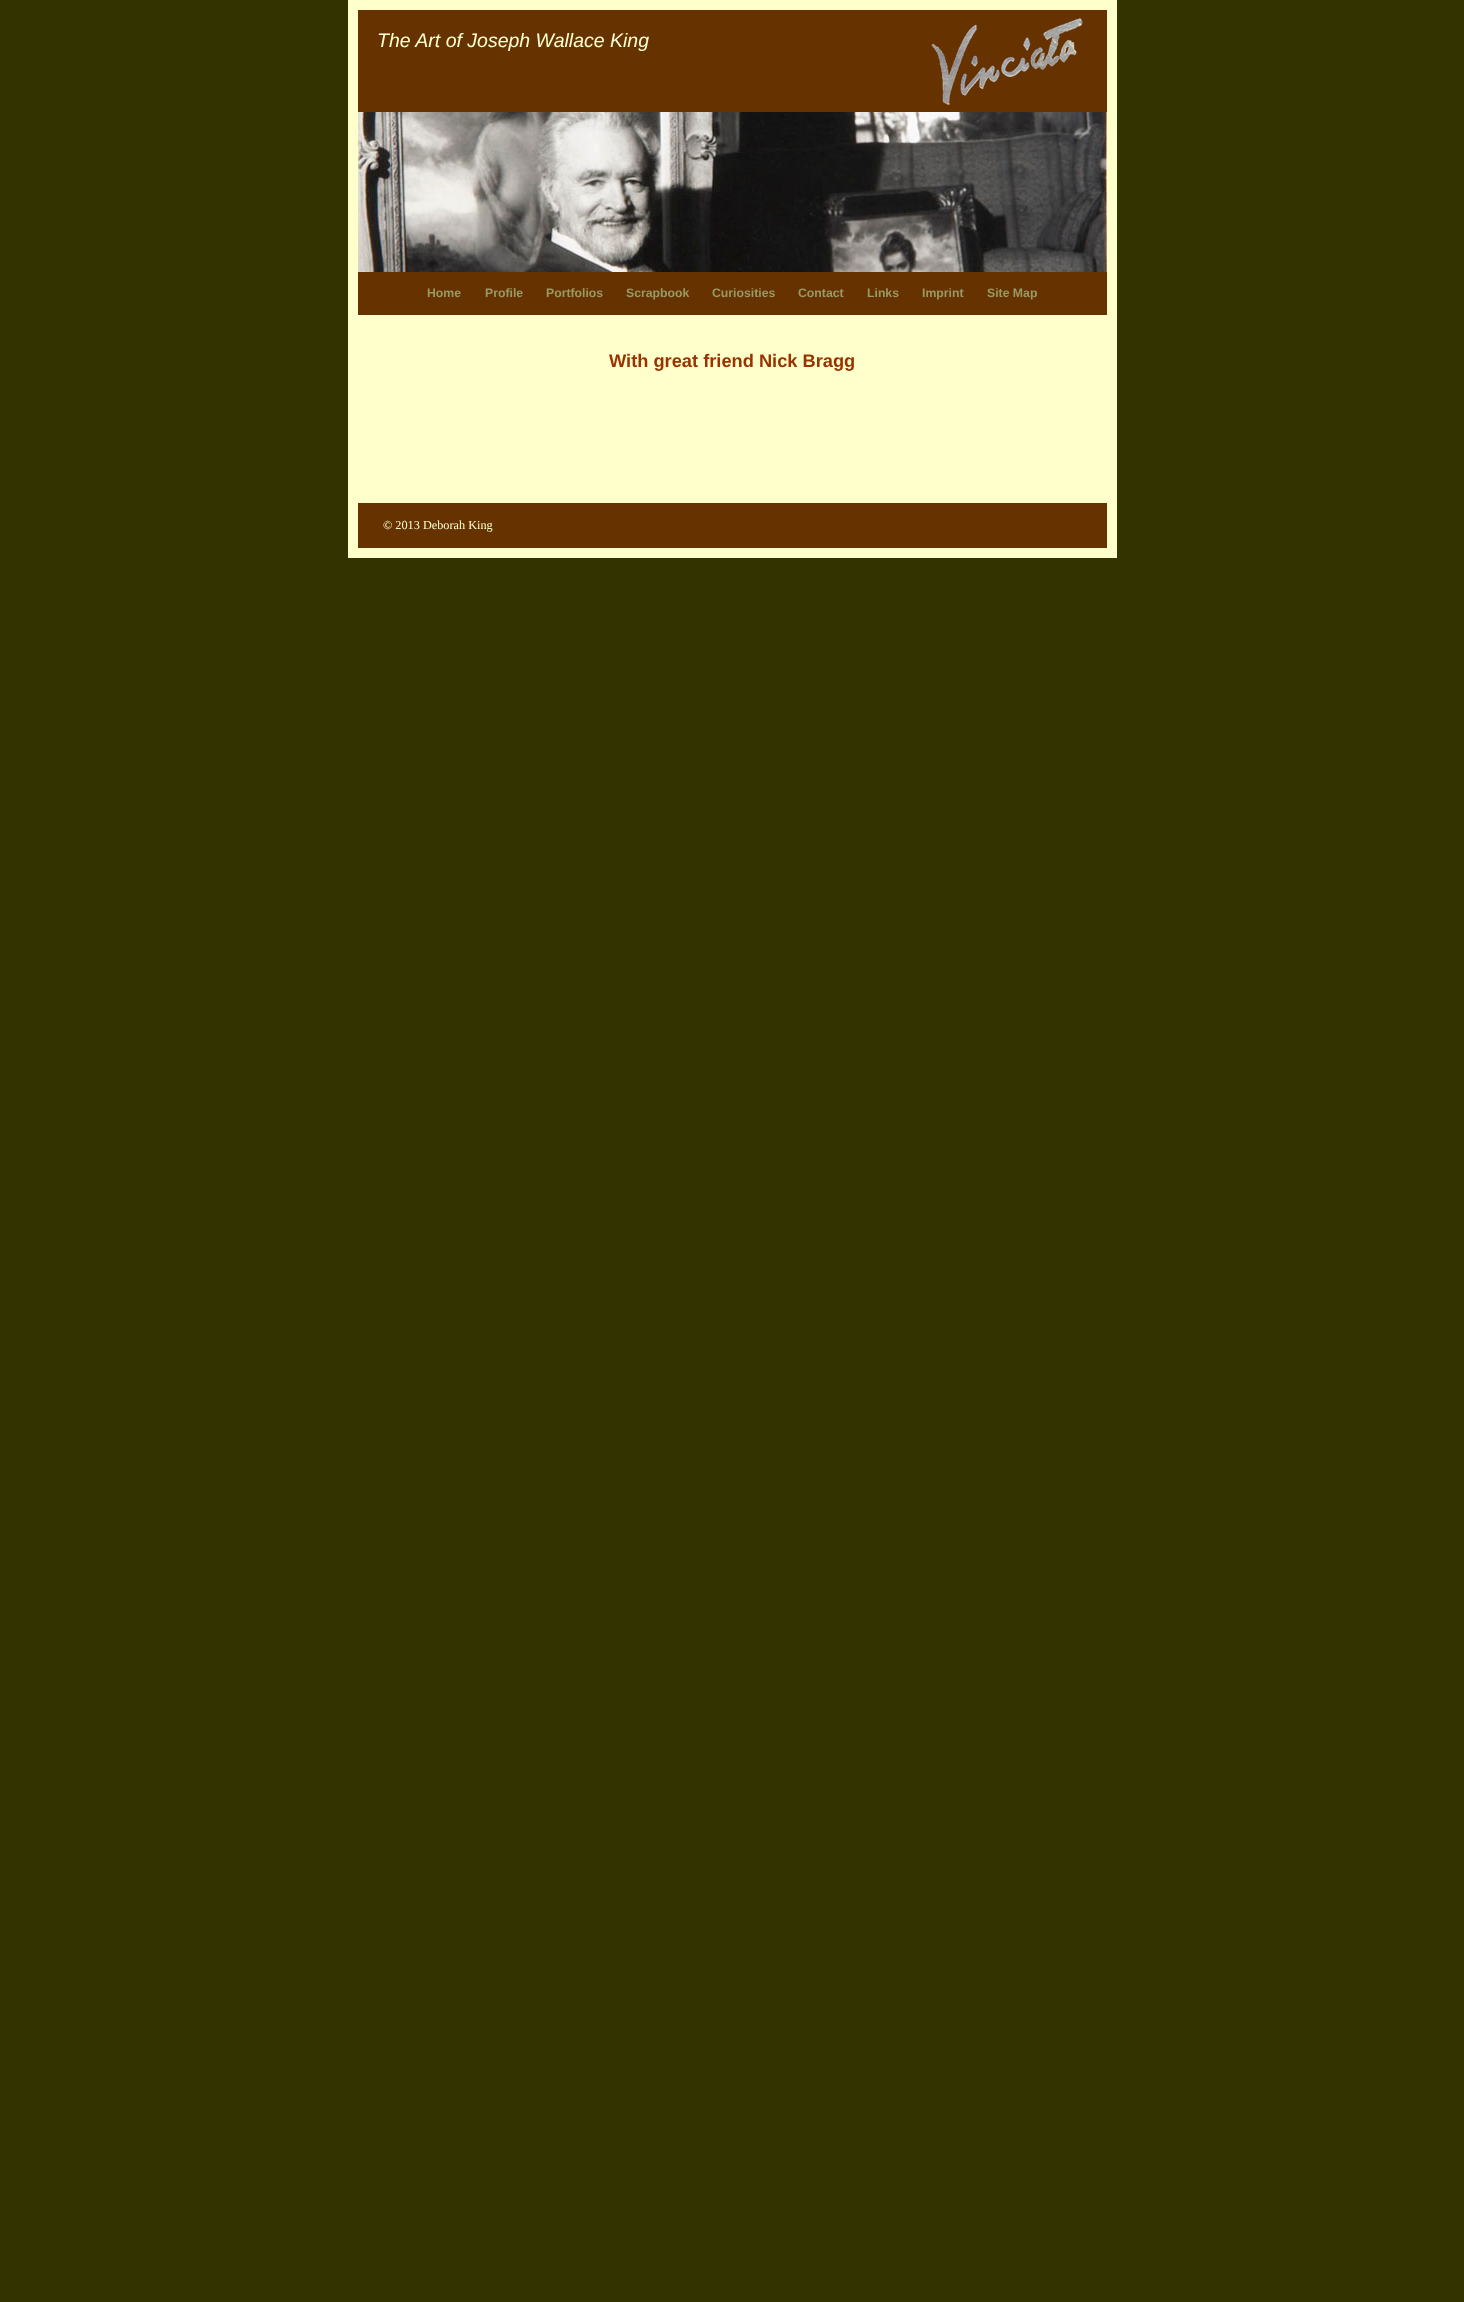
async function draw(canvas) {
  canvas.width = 1464;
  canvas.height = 2302;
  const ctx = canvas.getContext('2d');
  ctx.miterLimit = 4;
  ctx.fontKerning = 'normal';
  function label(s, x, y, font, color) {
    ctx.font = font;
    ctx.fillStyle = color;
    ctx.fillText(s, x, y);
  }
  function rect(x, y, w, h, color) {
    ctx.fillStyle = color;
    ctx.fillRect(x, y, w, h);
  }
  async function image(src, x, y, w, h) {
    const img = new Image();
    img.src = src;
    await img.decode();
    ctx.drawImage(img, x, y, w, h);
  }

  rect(0, 0, 1464, 2302, '#330');
  rect(348, 0, 769, 558, '#ffc');
  rect(358, 10, 749, 102, '#630');
  label('The Art of Joseph Wallace King', 377, 47, 'italic 19.5px Liberation Sans', '#feffd2');
  await image('assets/img1.png', 931, 18, 152, 87);
  await image('assets/img2.png', 358, 112, 749, 160);
  rect(358, 272, 749, 43, '#630');
  label('Home', 427, 297, 'bold 12.25px Liberation Sans', '#996');
  label('Profile', 485, 297, 'bold 12.25px Liberation Sans', '#996');
  label('Portfolios', 546, 297, 'bold 12.25px Liberation Sans', '#996');
  label('Scrapbook', 626, 297, 'bold 12.25px Liberation Sans', '#996');
  label('Curiosities', 712, 297, 'bold 12.25px Liberation Sans', '#996');
  label('Contact', 798, 297, 'bold 12.25px Liberation Sans', '#996');
  label('Links', 867, 297, 'bold 12.25px Liberation Sans', '#996');
  label('Imprint', 922, 297, 'bold 12.25px Liberation Sans', '#996');
  label('Site Map', 987, 297, 'bold 12.25px Liberation Sans', '#996');
  label('With great friend Nick Bragg', 609, 367, 'bold 18.25px Liberation Sans', '#930');
  rect(358, 503, 749, 45, '#630');
  label('© 2013 Deborah King', 383, 529, '12.25px Liberation Serif', '#feffd2');
}

draw(document.querySelector('canvas'));
